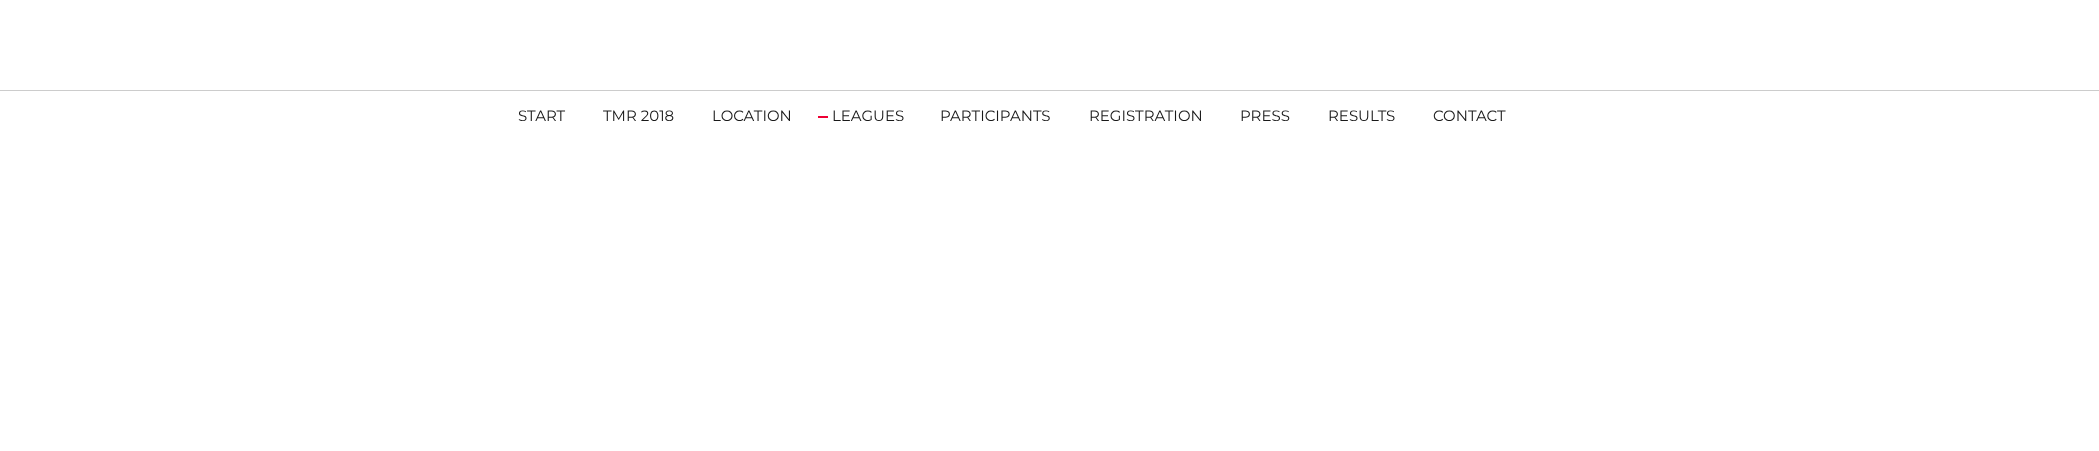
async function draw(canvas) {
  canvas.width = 2099;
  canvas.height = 451;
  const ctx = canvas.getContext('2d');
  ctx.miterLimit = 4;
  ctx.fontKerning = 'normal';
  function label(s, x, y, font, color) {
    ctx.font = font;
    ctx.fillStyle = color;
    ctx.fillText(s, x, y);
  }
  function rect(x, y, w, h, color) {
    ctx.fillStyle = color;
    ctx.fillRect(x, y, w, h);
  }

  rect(0, 0, 2099, 451, '#fff');
  rect(0, 90, 2099, 1, '#ccc');
  label('START', 518, 121, '15px Montserrat', '#191919');
  label('TMR 2018', 603, 121, '15px Montserrat', '#191919');
  label('LOCATION', 712, 121, '15px Montserrat', '#191919');
  rect(818, 116, 10, 2, '#ee0034');
  label('LEAGUES', 832, 121, '15px Montserrat', '#191919');
  label('PARTICIPANTS', 940, 121, '15px Montserrat', '#191919');
  label('REGISTRATION', 1089, 121, '15px Montserrat', '#191919');
  label('PRESS', 1240, 121, '15px Montserrat', '#191919');
  label('RESULTS', 1328, 121, '15px Montserrat', '#191919');
  label('CONTACT', 1433, 121, '15px Montserrat', '#191919');
}

draw(document.querySelector('canvas'));
